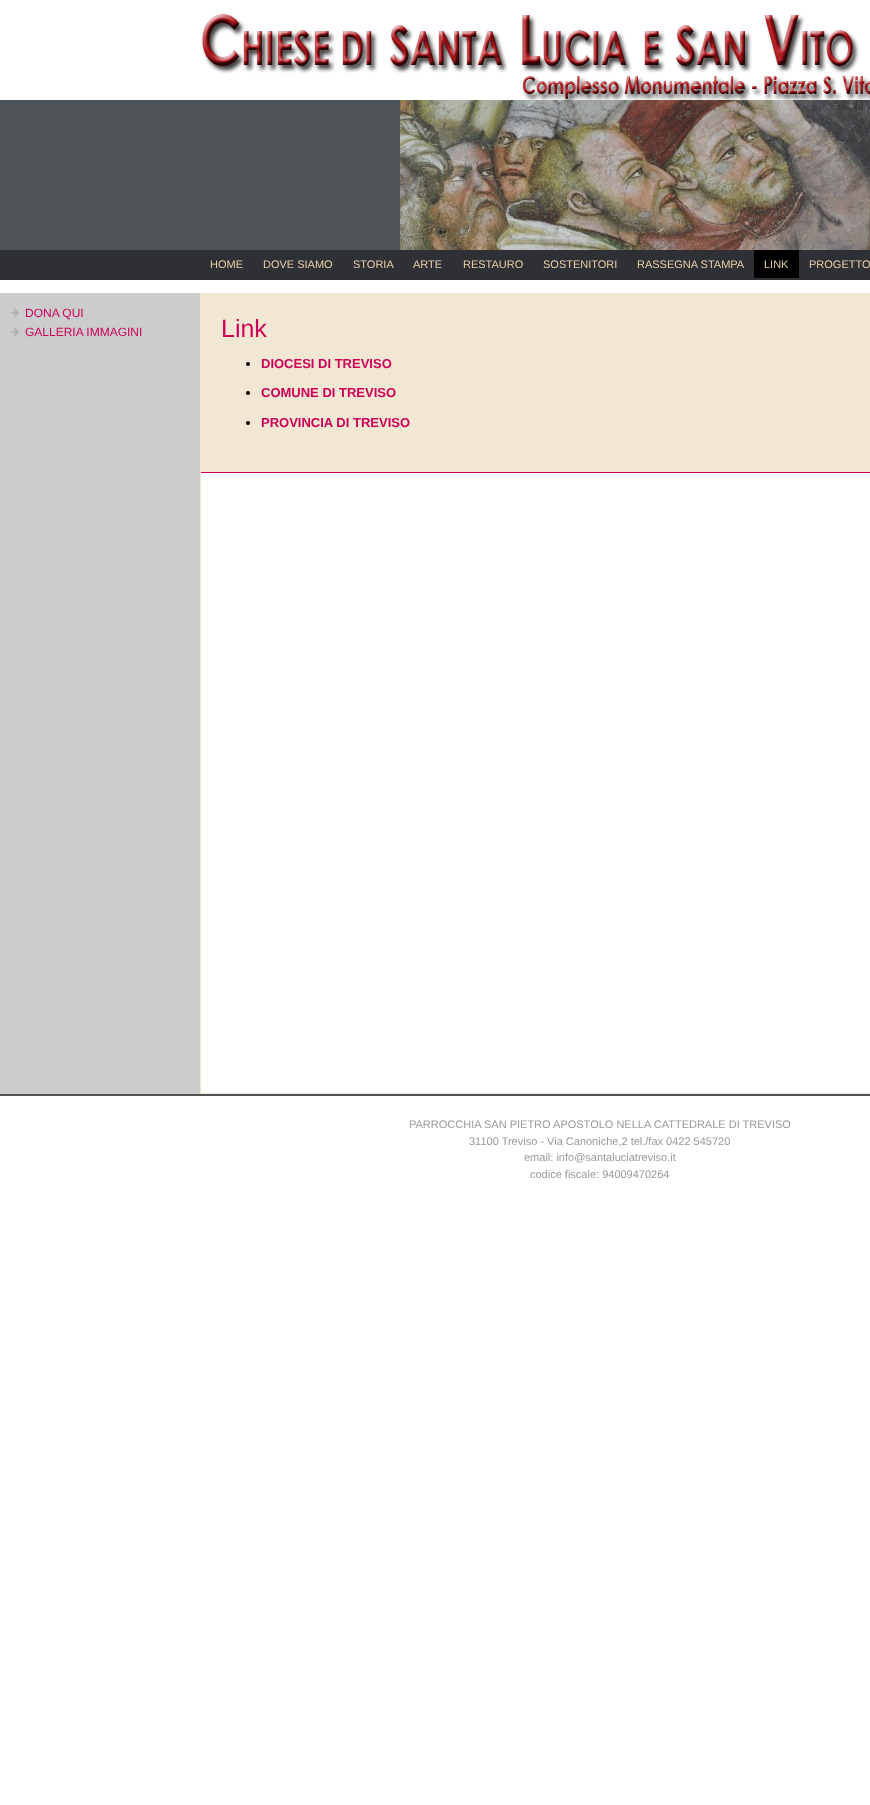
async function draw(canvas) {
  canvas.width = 870;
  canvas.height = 1805;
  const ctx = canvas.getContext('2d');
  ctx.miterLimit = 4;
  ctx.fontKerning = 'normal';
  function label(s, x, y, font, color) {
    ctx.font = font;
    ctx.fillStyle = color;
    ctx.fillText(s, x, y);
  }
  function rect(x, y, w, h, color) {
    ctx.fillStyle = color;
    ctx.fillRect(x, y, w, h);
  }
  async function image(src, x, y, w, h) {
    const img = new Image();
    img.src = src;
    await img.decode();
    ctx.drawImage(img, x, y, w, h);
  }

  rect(0, 0, 870, 1805, '#fff');
  await image('assets/img1.png', 0, 100, 870, 180);
  await image('assets/img2.png', 202, 14, 668, 86);
  await image('assets/img3.png', 400, 100, 470, 150);
  label('HOME', 210, 268, '11px Liberation Sans', '#e8d2ab');
  label('DOVE SIAMO', 263, 268, '11px Liberation Sans', '#e8d2ab');
  label('STORIA', 353, 268, '11px Liberation Sans', '#e8d2ab');
  label('ARTE', 413, 268, '11px Liberation Sans', '#e8d2ab');
  label('RESTAURO', 463, 268, '11px Liberation Sans', '#e8d2ab');
  label('SOSTENITORI', 543, 268, '11px Liberation Sans', '#e8d2ab');
  label('RASSEGNA STAMPA', 637, 268, '11px Liberation Sans', '#e8d2ab');
  rect(754, 250, 45, 28, '#000');
  label('LINK', 764, 268, '11px Liberation Sans', '#e8d2ab');
  label('PROGETTO', 809, 268, '11px Liberation Sans', '#e8d2ab');
  rect(0, 293, 200, 801, '#ccc');
  await image('assets/img4.png', 11, 309, 8, 8);
  label('DONA QUI', 25, 317, '12px Liberation Sans', '#ce0058');
  await image('assets/img4.png', 11, 328, 8, 8);
  label('GALLERIA IMMAGINI', 25, 336, '12px Liberation Sans', '#ce0058');
  ctx.strokeStyle = '#f1e7d2';
  ctx.strokeRect(200.5, 293.5, 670, 800);
  rect(201, 294, 669, 178, '#f1e7d2');
  rect(201, 472, 669, 1, '#ce0058');
  label('Link', 221, 337, '25px Liberation Sans', '#ce0058');
  ctx.fillStyle = '#000';
  ctx.beginPath();
  ctx.arc(248, 364, 2, 0, 2 * Math.PI);
  ctx.fill();
  label('DIOCESI DI TREVISO', 261, 368, 'bold 13px Liberation Sans', '#ce0058');
  ctx.fillStyle = '#000';
  ctx.beginPath();
  ctx.arc(248, 393, 2, 0, 2 * Math.PI);
  ctx.fill();
  label('COMUNE DI TREVISO', 261, 397, 'bold 13px Liberation Sans', '#ce0058');
  ctx.fillStyle = '#000';
  ctx.beginPath();
  ctx.arc(248, 423, 2, 0, 2 * Math.PI);
  ctx.fill();
  label('PROVINCIA DI TREVISO', 261, 427, 'bold 13px Liberation Sans', '#ce0058');
  rect(0, 1094, 870, 2, '#4d5357');
  label('PARROCCHIA SAN PIETRO APOSTOLO NELLA CATTEDRALE DI TREVISO', 409, 1128, '11px Liberation Sans', '#999');
  label('31100 Treviso - Via Canoniche,2 tel./fax 0422 545720', 469, 1145, '11px Liberation Sans', '#999');
  label('email: info@santaluciatreviso.it', 524, 1161, '11px Liberation Sans', '#999');
  label('codice fiscale: 94009470264', 530, 1178, '11px Liberation Sans', '#999');
}

draw(document.querySelector('canvas'));
